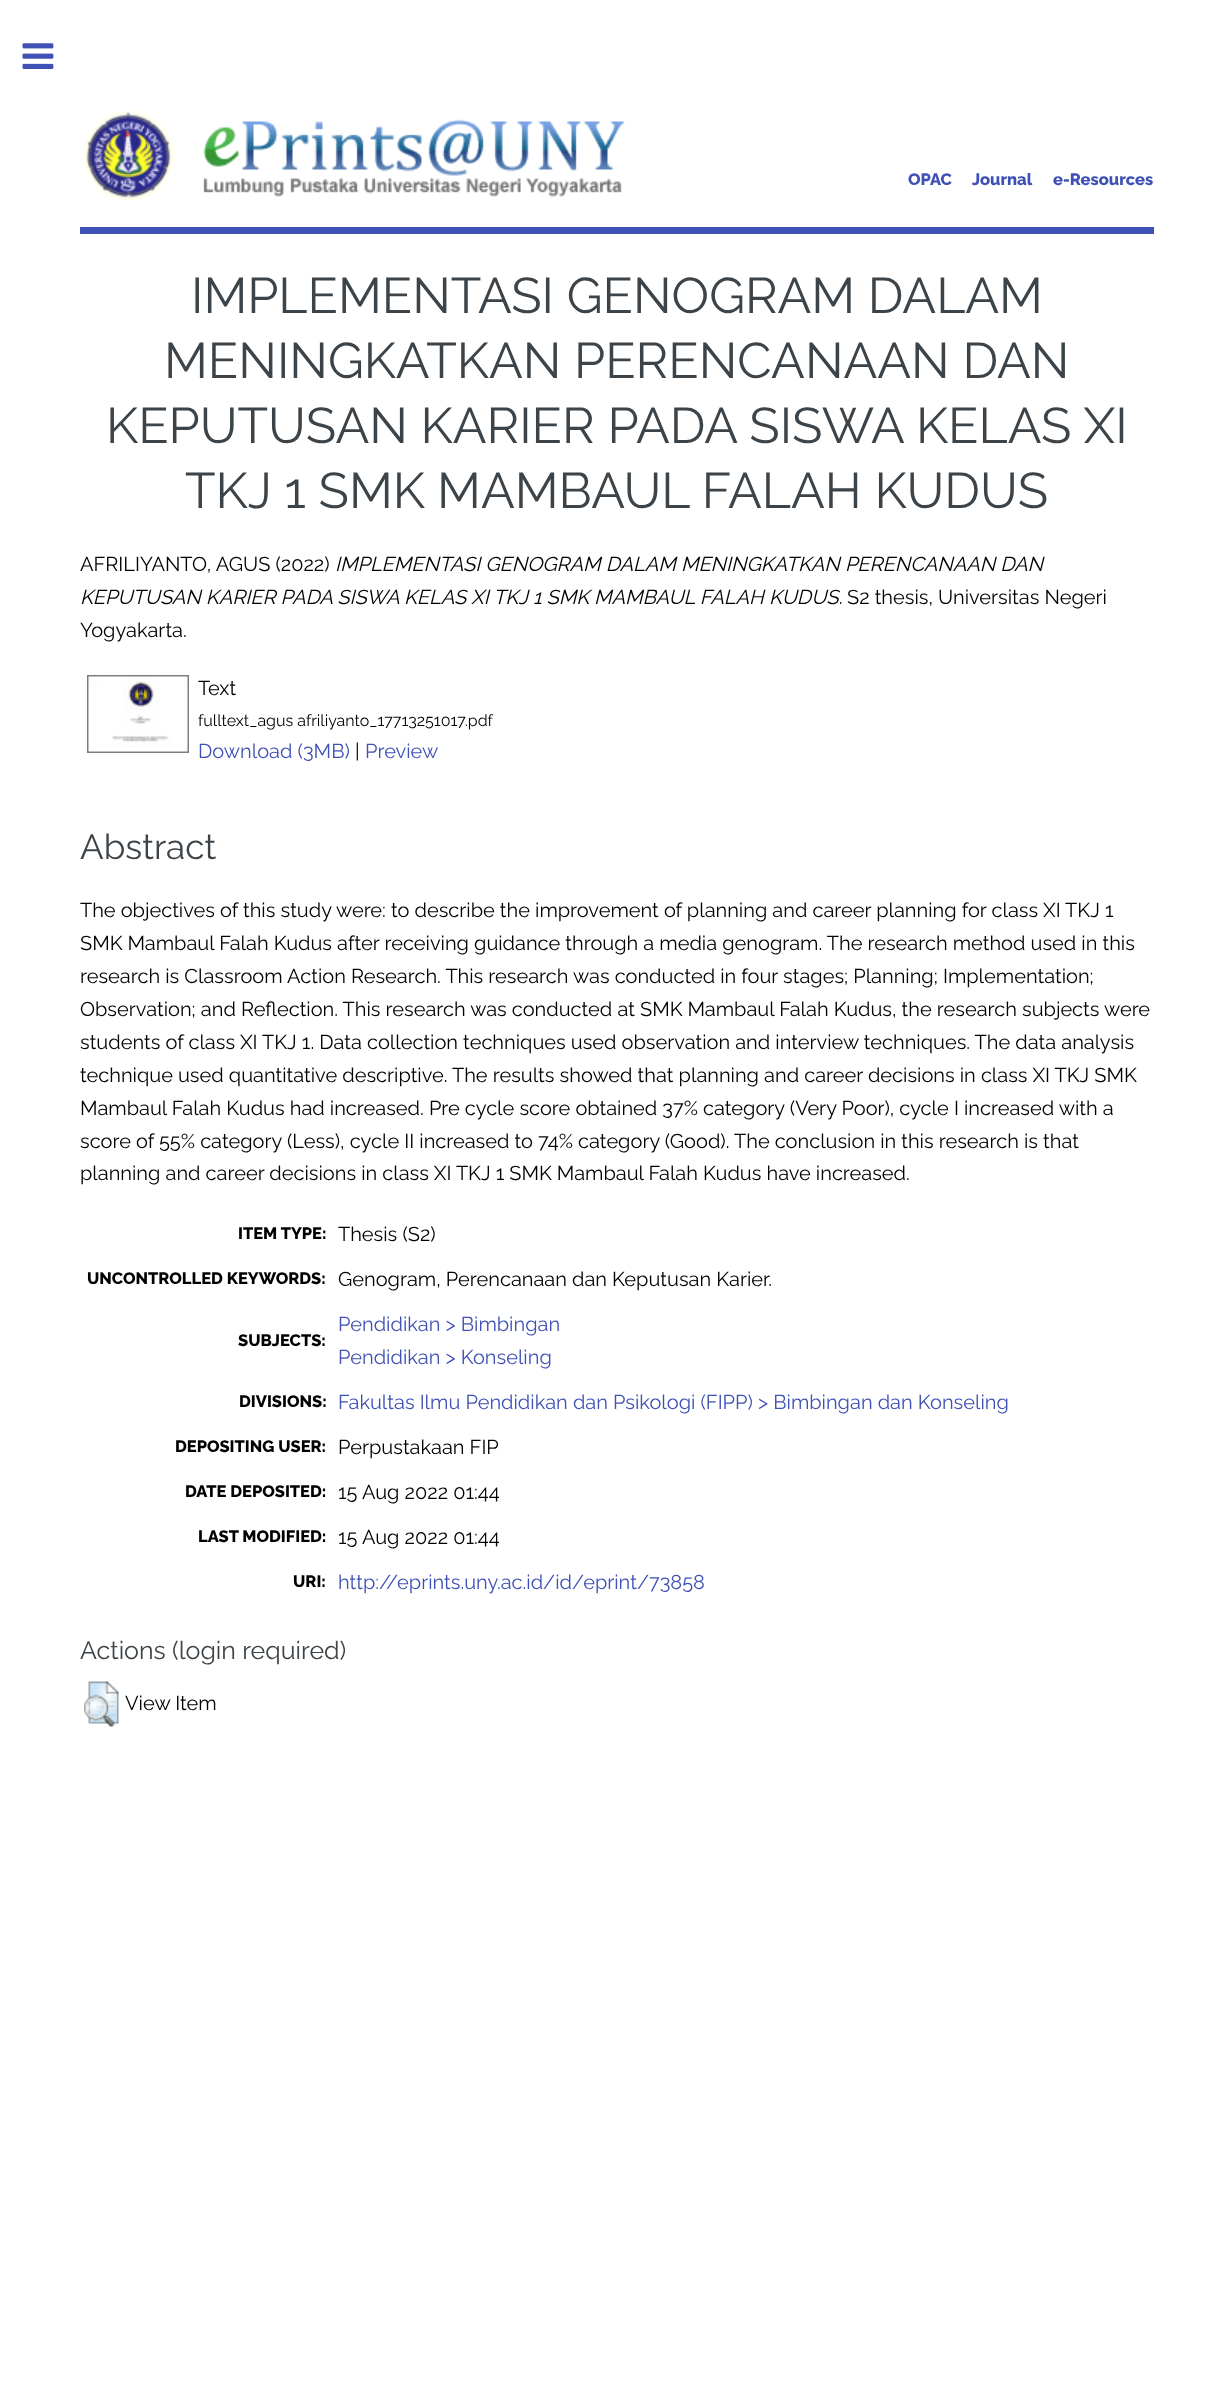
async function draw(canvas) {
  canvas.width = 1232;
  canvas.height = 2383;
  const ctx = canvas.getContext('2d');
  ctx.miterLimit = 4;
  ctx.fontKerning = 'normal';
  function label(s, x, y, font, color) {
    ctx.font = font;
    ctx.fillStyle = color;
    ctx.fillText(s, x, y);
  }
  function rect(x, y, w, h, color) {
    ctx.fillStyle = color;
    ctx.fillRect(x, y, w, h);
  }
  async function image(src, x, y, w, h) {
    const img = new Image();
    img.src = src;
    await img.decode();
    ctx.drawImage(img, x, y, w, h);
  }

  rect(0, 0, 1232, 2383, '#fff');
  await image('assets/img1.png', 22, 43, 32, 26);
  rect(80, 227, 1074, 7, '#3f51b5');
  await image('assets/img2.png', 83, 110, 542, 91);
  label('OPAC', 908, 185, '800 16.5px Raleway', '#3f51b5');
  label('Journal', 972, 185, '800 16.5px Raleway', '#3f51b5');
  label('e-Resources', 1053, 185, '800 16.5px Raleway', '#3f51b5');
  label('IMPLEMENTASI GENOGRAM DALAM', 191, 313, '50px Raleway', '#3d4449');
  label('MENINGKATKAN PERENCANAAN DAN', 164, 378, '50px Raleway', '#3d4449');
  label('KEPUTUSAN KARIER PADA SISWA KELAS XI', 106, 443, '50px Raleway', '#3d4449');
  label('TKJ 1 SMK MAMBAUL FALAH KUDUS', 185, 508, '50px Raleway', '#3d4449');
  label('AFRILIYANTO, AGUS (2022)', 80, 571, '20px Raleway', '#000');
  label('IMPLEMENTASI GENOGRAM DALAM MENINGKATKAN PERENCANAAN DAN', 335, 571, 'italic 20px Raleway', '#000');
  label('KEPUTUSAN KARIER PADA SISWA KELAS XI TKJ 1 SMK MAMBAUL FALAH KUDUS.', 80, 604, 'italic 20px Raleway', '#000');
  label('S2 thesis, Universitas Negeri', 847, 604, '20px Raleway', '#000');
  label('Yogyakarta.', 80, 637, '20px Raleway', '#000');
  await image('assets/img3.png', 87, 675, 102, 78);
  label('Text', 198, 695, '20px Raleway', '#000');
  label('fulltext_agus afriliyanto_17713251017.pdf', 198, 726, '16px Raleway', '#000');
  label('Download (3MB)', 198, 758, '20px Raleway', '#3f51b5');
  label('|', 355, 758, '20px Raleway', '#000');
  label('Preview', 365, 758, '20px Raleway', '#3f51b5');
  label('Abstract', 80, 859, '35px Raleway', '#3d4449');
  label('The objectives of this study were: to describe the improvement of planning and career planning for class XI TKJ 1', 80, 917, '20px Raleway', '#000');
  label('SMK Mambaul Falah Kudus after receiving guidance through a media genogram. The research method used in this', 80, 950, '20px Raleway', '#000');
  label('research is Classroom Action Research. This research was conducted in four stages; Planning; Implementation;', 80, 983, '20px Raleway', '#000');
  label('Observation; and Reflection. This research was conducted at SMK Mambaul Falah Kudus, the research subjects were', 80, 1016, '20px Raleway', '#000');
  label('students of class XI TKJ 1. Data collection techniques used observation and interview techniques. The data analysis', 80, 1049, '20px Raleway', '#000');
  label('technique used quantitative descriptive.', 80, 1082, '20px Raleway', '#000');
  label('The results showed that planning and career decisions in class XI TKJ SMK', 452, 1082, '20px Raleway', '#000');
  label('Mambaul Falah Kudus had increased. Pre cycle score obtained 37% category (Very Poor), cycle I increased with a', 80, 1115, '20px Raleway', '#000');
  label('score of 55% category (Less), cycle II increased to 74% category (Good). The conclusion in this research is that', 80, 1148, '20px Raleway', '#000');
  label('planning and career decisions in class XI TKJ 1 SMK Mambaul Falah Kudus have increased.', 80, 1180, '20px Raleway', '#000');
  label('ITEM TYPE:', 238, 1239, '800 16.5px Raleway', '#000');
  label('Thesis (S2)', 338, 1241, '20px Raleway', '#000');
  label('UNCONTROLLED KEYWORDS:', 87, 1284, '800 16.5px Raleway', '#000');
  label('Genogram, Perencanaan dan Keputusan Karier.', 338, 1286, '20px Raleway', '#000');
  label('SUBJECTS:', 238, 1346, '800 16.5px Raleway', '#000');
  label('Pendidikan > Bimbingan', 338, 1331, '20px Raleway', '#3f51b5');
  label('Pendidikan > Konseling', 338, 1364, '20px Raleway', '#3f51b5');
  label('DIVISIONS:', 239, 1407, '800 16.5px Raleway', '#000');
  label('Fakultas Ilmu Pendidikan dan Psikologi (FIPP) > Bimbingan dan Konseling', 338, 1409, '20px Raleway', '#3f51b5');
  label('DEPOSITING USER:', 175, 1452, '800 16.5px Raleway', '#000');
  label('Perpustakaan FIP', 338, 1454, '20px Raleway', '#000');
  label('DATE DEPOSITED:', 185, 1497, '800 16.5px Raleway', '#000');
  label('15 Aug 2022 01:44', 338, 1499, '20px Raleway', '#000');
  label('LAST MODIFIED:', 198, 1542, '800 16.5px Raleway', '#000');
  label('15 Aug 2022 01:44', 338, 1544, '20px Raleway', '#000');
  label('URI:', 293, 1587, '800 16.5px Raleway', '#000');
  label('http://eprints.uny.ac.id/id/eprint/73858', 338, 1589, '20px Raleway', '#3f51b5');
  label('Actions (login required)', 80, 1659, '25px Raleway', '#3d4449');
  await image('assets/img4.png', 84, 1681, 35, 46);
  label('View Item', 125, 1710, '20px Raleway', '#000');
}

draw(document.querySelector('canvas'));
